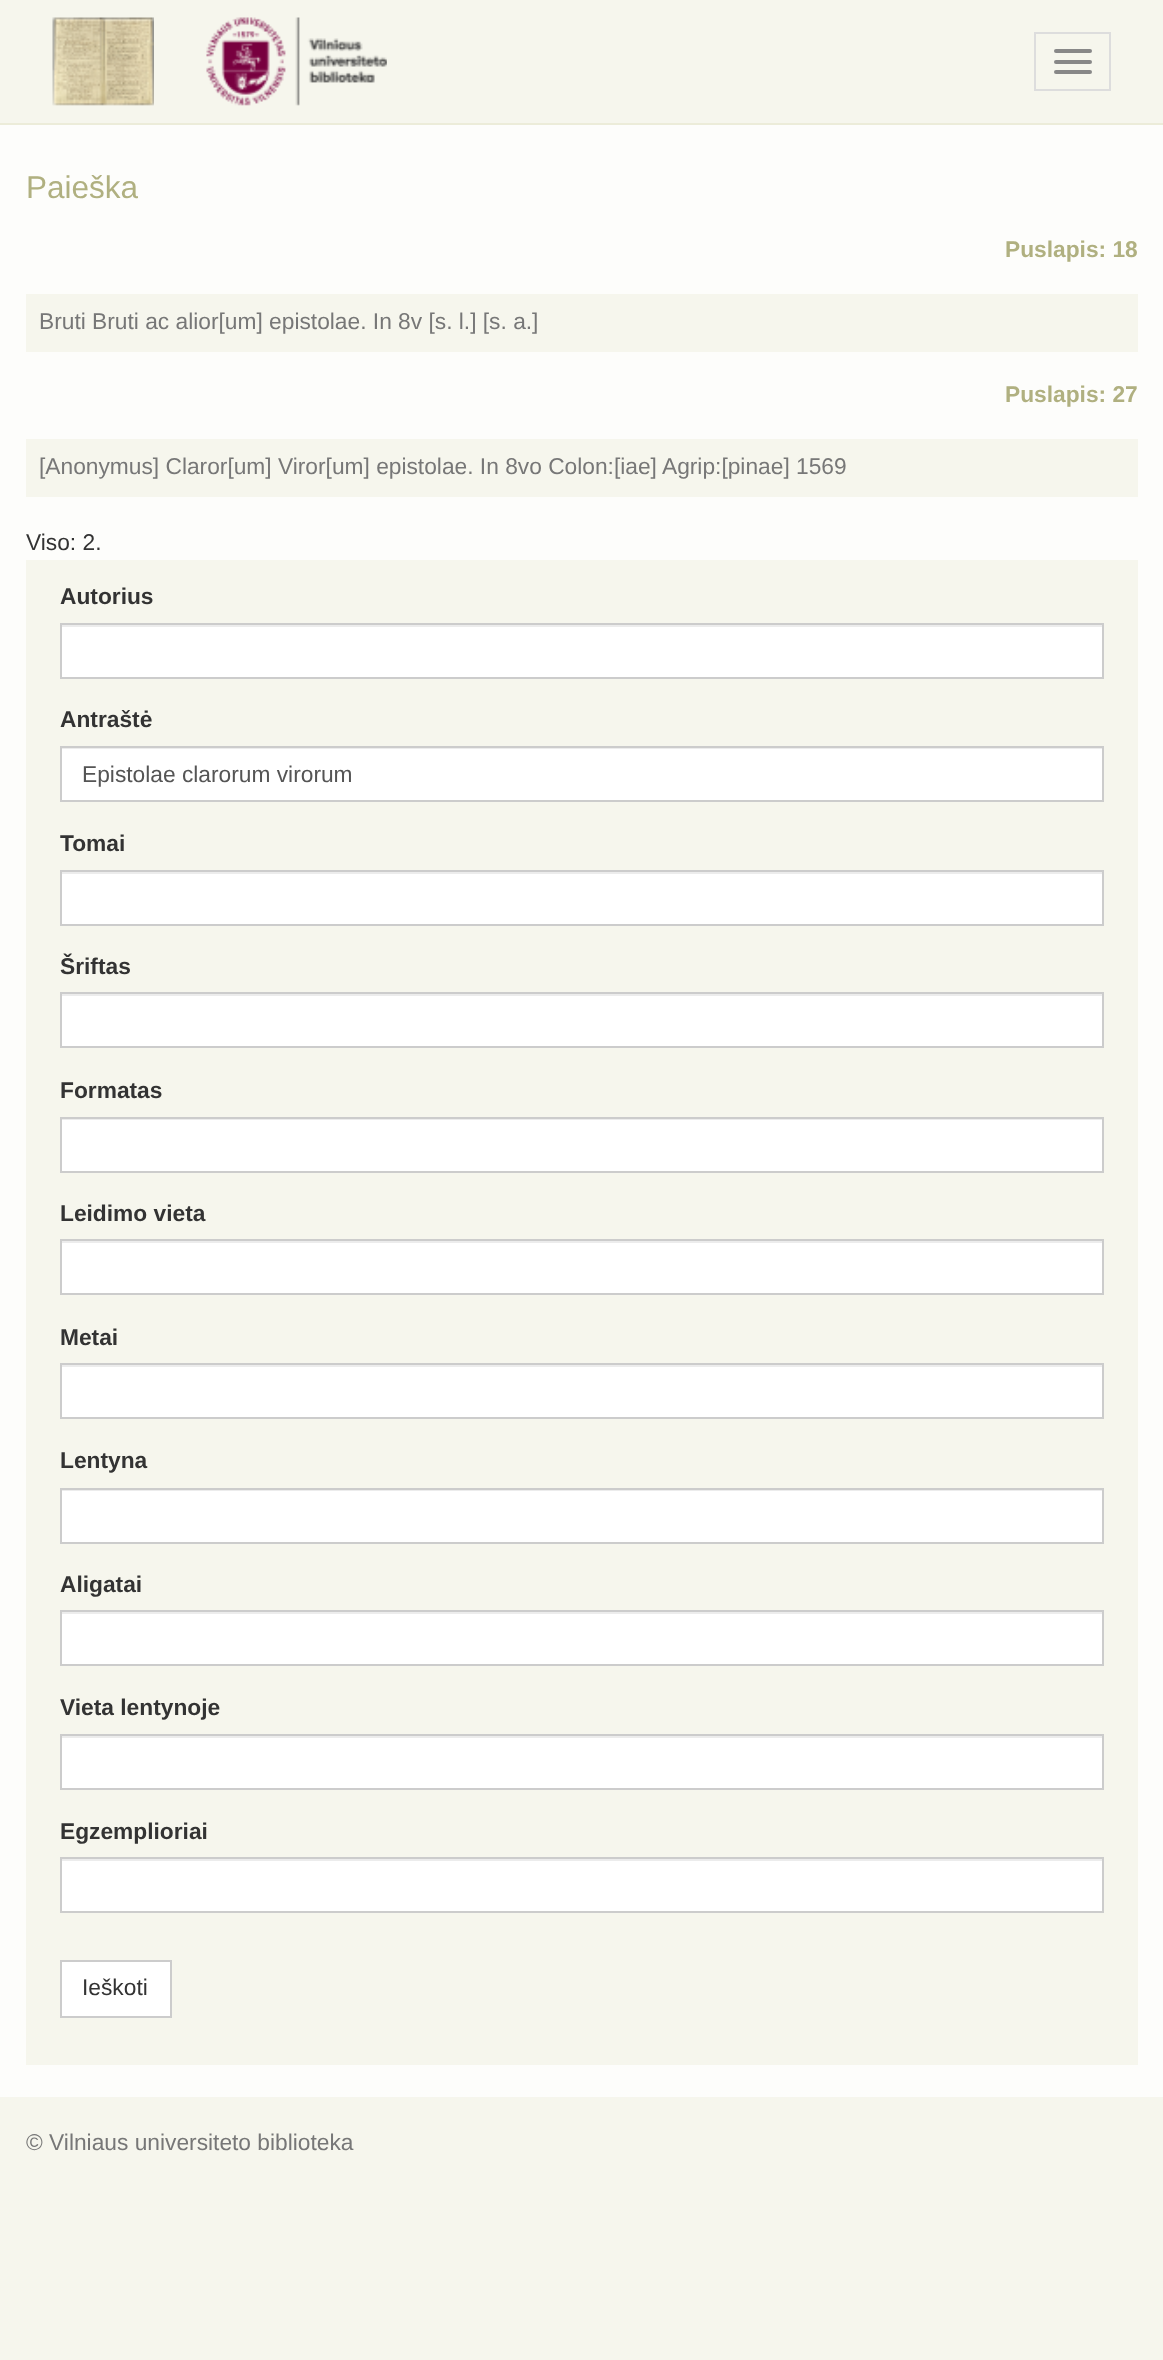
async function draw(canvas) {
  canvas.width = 1163;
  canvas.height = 2360;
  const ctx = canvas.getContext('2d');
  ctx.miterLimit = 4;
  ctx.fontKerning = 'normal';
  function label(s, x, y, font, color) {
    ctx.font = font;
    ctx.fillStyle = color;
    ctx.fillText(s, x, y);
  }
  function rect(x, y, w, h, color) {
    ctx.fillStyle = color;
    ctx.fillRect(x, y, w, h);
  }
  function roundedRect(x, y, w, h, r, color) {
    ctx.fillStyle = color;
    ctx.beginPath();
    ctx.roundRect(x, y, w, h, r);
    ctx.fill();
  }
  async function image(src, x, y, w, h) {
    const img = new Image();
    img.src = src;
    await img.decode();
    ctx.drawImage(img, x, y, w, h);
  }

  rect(0, 0, 1163, 2360, '#f6f6ed');
  rect(0, 123, 1163, 2, '#ececd9');
  await image('assets/img1.png', 52, 17, 102, 89);
  await image('assets/img2.png', 206, 17, 181, 89);
  ctx.strokeStyle = '#ddd';
  ctx.lineWidth = 2;
  ctx.strokeRect(1035, 33, 75, 57);
  roundedRect(1054, 49, 38, 4, 2, '#888');
  roundedRect(1054, 60, 38, 4, 2, '#888');
  roundedRect(1054, 70, 38, 4, 2, '#888');
  rect(0, 125, 1163, 1972, '#fdfdfb');
  label('Paieška', 26, 198, '31.5px Liberation Sans', '#b0b080');
  label('Puslapis: 18', 1005, 257, 'bold 22.75px Liberation Sans', '#b0b080');
  rect(26, 294, 1112, 58, '#f6f6ed');
  label('Bruti Bruti ac alior[um] epistolae. In 8v [s. l.] [s. a.]', 39, 329, '22.75px Liberation Sans', '#777');
  label('Puslapis: 27', 1005, 402, 'bold 22.75px Liberation Sans', '#b0b080');
  rect(26, 439, 1112, 58, '#f6f6ed');
  label('[Anonymus] Claror[um] Viror[um] epistolae. In 8vo Colon:[iae] Agrip:[pinae] 1569', 39, 474, '22.75px Liberation Sans', '#777');
  label('Viso: 2.', 26, 550, '22.75px Liberation Sans', '#333');
  rect(26, 560, 1112, 1505, '#f6f6ed');
  label('Autorius', 60, 604, 'bold 22.75px Liberation Sans', '#333');
  rect(62, 627, 1040, 50, '#fff');
  rect(61, 625, 1042, 2, '#ececec');
  ctx.strokeStyle = '#ccc';
  ctx.strokeRect(61, 624, 1042, 54);
  label('Antraštė', 60, 727, 'bold 22.75px Liberation Sans', '#333');
  rect(62, 749, 1040, 51, '#fff');
  rect(61, 748, 1042, 1, '#ececec');
  ctx.strokeRect(61, 747, 1042, 54);
  label('Epistolae clarorum virorum', 82, 782, '22.75px Liberation Sans', '#555');
  label('Tomai', 60, 851, 'bold 22.75px Liberation Sans', '#333');
  rect(62, 874, 1040, 50, '#fff');
  rect(61, 872, 1042, 2, '#ececec');
  ctx.strokeRect(61, 871, 1042, 54);
  label('Šriftas', 60, 974, 'bold 22.75px Liberation Sans', '#333');
  rect(62, 996, 1040, 50, '#fff');
  rect(61, 994, 1042, 2, '#ececec');
  ctx.strokeRect(61, 993, 1042, 54);
  label('Formatas', 60, 1098, 'bold 22.75px Liberation Sans', '#333');
  rect(62, 1120, 1040, 51, '#fff');
  rect(61, 1119, 1042, 1, '#ececec');
  ctx.strokeRect(61, 1118, 1042, 54);
  label('Leidimo vieta', 60, 1221, 'bold 22.75px Liberation Sans', '#333');
  rect(62, 1243, 1040, 50, '#fff');
  rect(61, 1241, 1042, 2, '#ececec');
  ctx.strokeRect(61, 1240, 1042, 54);
  label('Metai', 60, 1345, 'bold 22.75px Liberation Sans', '#333');
  rect(62, 1367, 1040, 50, '#fff');
  rect(61, 1365, 1042, 2, '#ececec');
  ctx.strokeRect(61, 1364, 1042, 54);
  label('Lentyna', 60, 1468, 'bold 22.75px Liberation Sans', '#333');
  rect(62, 1491, 1040, 51, '#fff');
  rect(61, 1490, 1042, 1, '#ececec');
  ctx.strokeRect(61, 1489, 1042, 54);
  label('Aligatai', 60, 1592, 'bold 22.75px Liberation Sans', '#333');
  rect(62, 1614, 1040, 50, '#fff');
  rect(61, 1612, 1042, 2, '#ececec');
  ctx.strokeRect(61, 1611, 1042, 54);
  label('Vieta lentynoje', 60, 1715, 'bold 22.75px Liberation Sans', '#333');
  rect(62, 1738, 1040, 50, '#fff');
  rect(61, 1736, 1042, 2, '#ececec');
  ctx.strokeRect(61, 1735, 1042, 54);
  label('Egzemplioriai', 60, 1839, 'bold 22.75px Liberation Sans', '#333');
  rect(62, 1861, 1040, 50, '#fff');
  rect(61, 1859, 1042, 2, '#ececec');
  ctx.strokeRect(61, 1858, 1042, 54);
  ctx.fillStyle = '#fff';
  ctx.beginPath();
  ctx.rect(61, 1961, 110, 56);
  ctx.fill();
  ctx.stroke();
  label('Ieškoti', 82, 1995, '22.75px Liberation Sans', '#333');
  label('© Vilniaus universiteto biblioteka', 26, 2150, '22.75px Liberation Sans', '#777');
}

draw(document.querySelector('canvas'));
